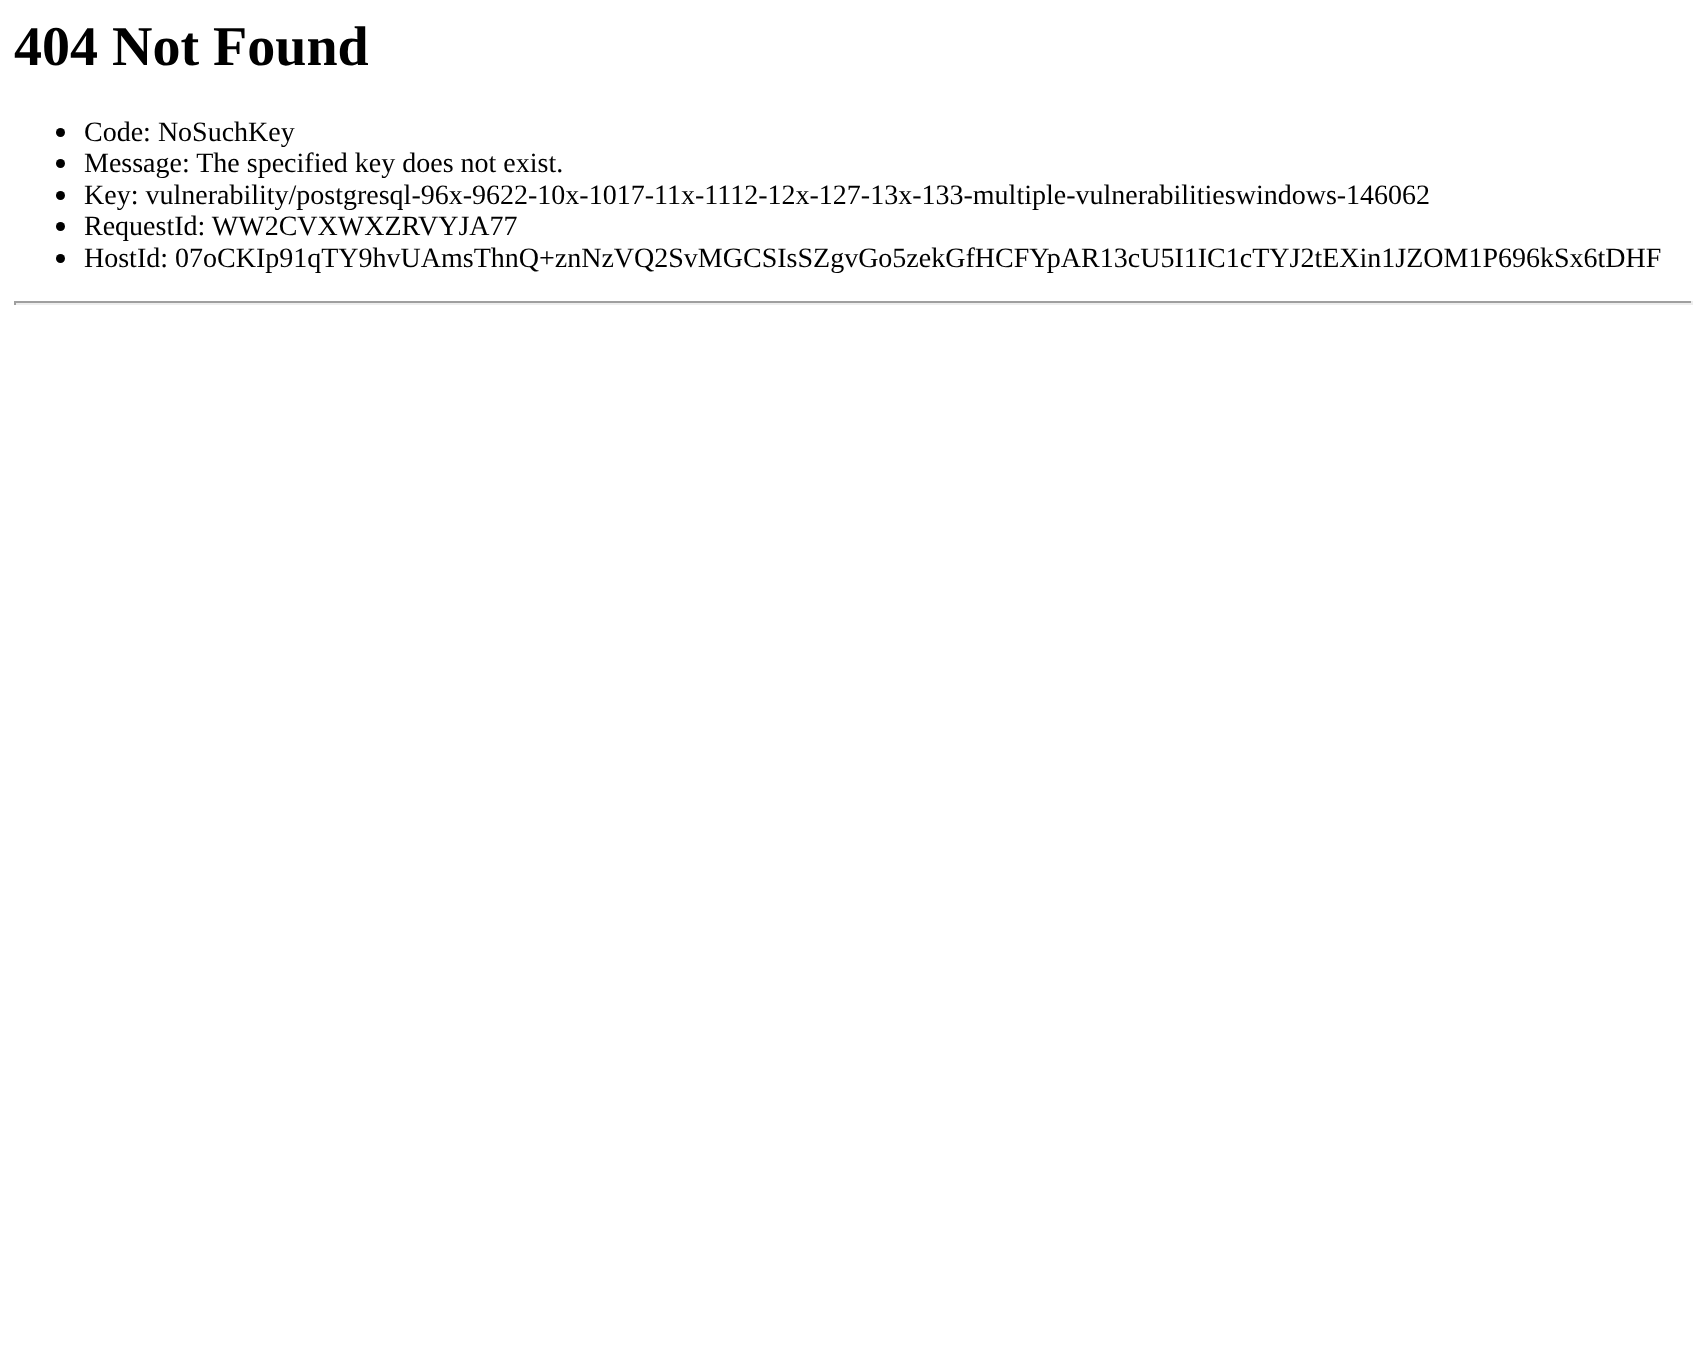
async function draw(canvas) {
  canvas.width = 1705;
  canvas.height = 1362;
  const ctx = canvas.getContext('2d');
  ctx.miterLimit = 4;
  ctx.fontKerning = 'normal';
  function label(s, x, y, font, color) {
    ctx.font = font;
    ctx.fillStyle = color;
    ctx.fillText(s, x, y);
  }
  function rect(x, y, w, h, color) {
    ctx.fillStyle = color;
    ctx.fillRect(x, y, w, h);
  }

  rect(0, 0, 1705, 1362, '#fff');
  label('404 Not Found', 14, 65, 'bold 56px Liberation Serif', '#000');
  ctx.beginPath();
  ctx.arc(60.5, 132.5, 4.5, 0, 2 * Math.PI);
  ctx.fill();
  label('Code: NoSuchKey', 84, 141, '28px Liberation Serif', '#000');
  ctx.beginPath();
  ctx.arc(60.5, 163.5, 4.5, 0, 2 * Math.PI);
  ctx.fill();
  label('Message: The specified key does not exist.', 84, 172, '28px Liberation Serif', '#000');
  ctx.beginPath();
  ctx.arc(60.5, 195.5, 4.5, 0, 2 * Math.PI);
  ctx.fill();
  label('Key: vulnerability/postgresql-96x-9622-10x-1017-11x-1112-12x-127-13x-133-multiple-vulnerabilitieswindows-146062', 84, 204, '28px Liberation Serif', '#000');
  ctx.beginPath();
  ctx.arc(60.5, 226.5, 4.5, 0, 2 * Math.PI);
  ctx.fill();
  label('RequestId: WW2CVXWXZRVYJA77', 84, 235, '28px Liberation Serif', '#000');
  ctx.beginPath();
  ctx.arc(60.5, 258.5, 4.5, 0, 2 * Math.PI);
  ctx.fill();
  label('HostId: 07oCKIp91qTY9hvUAmsThnQ+znNzVQ2SvMGCSIsSZgvGo5zekGfHCFYpAR13cU5I1IC1cTYJ2tEXin1JZOM1P696kSx6tDHF', 84, 267, '28px Liberation Serif', '#000');
  rect(14, 301, 1678, 2, '#9f9f9f');
  rect(1691, 301, 2, 4, '#eee');
  rect(14, 303, 1678, 2, '#eee');
  rect(14, 301, 2, 4, '#9f9f9f');
}

draw(document.querySelector('canvas'));
